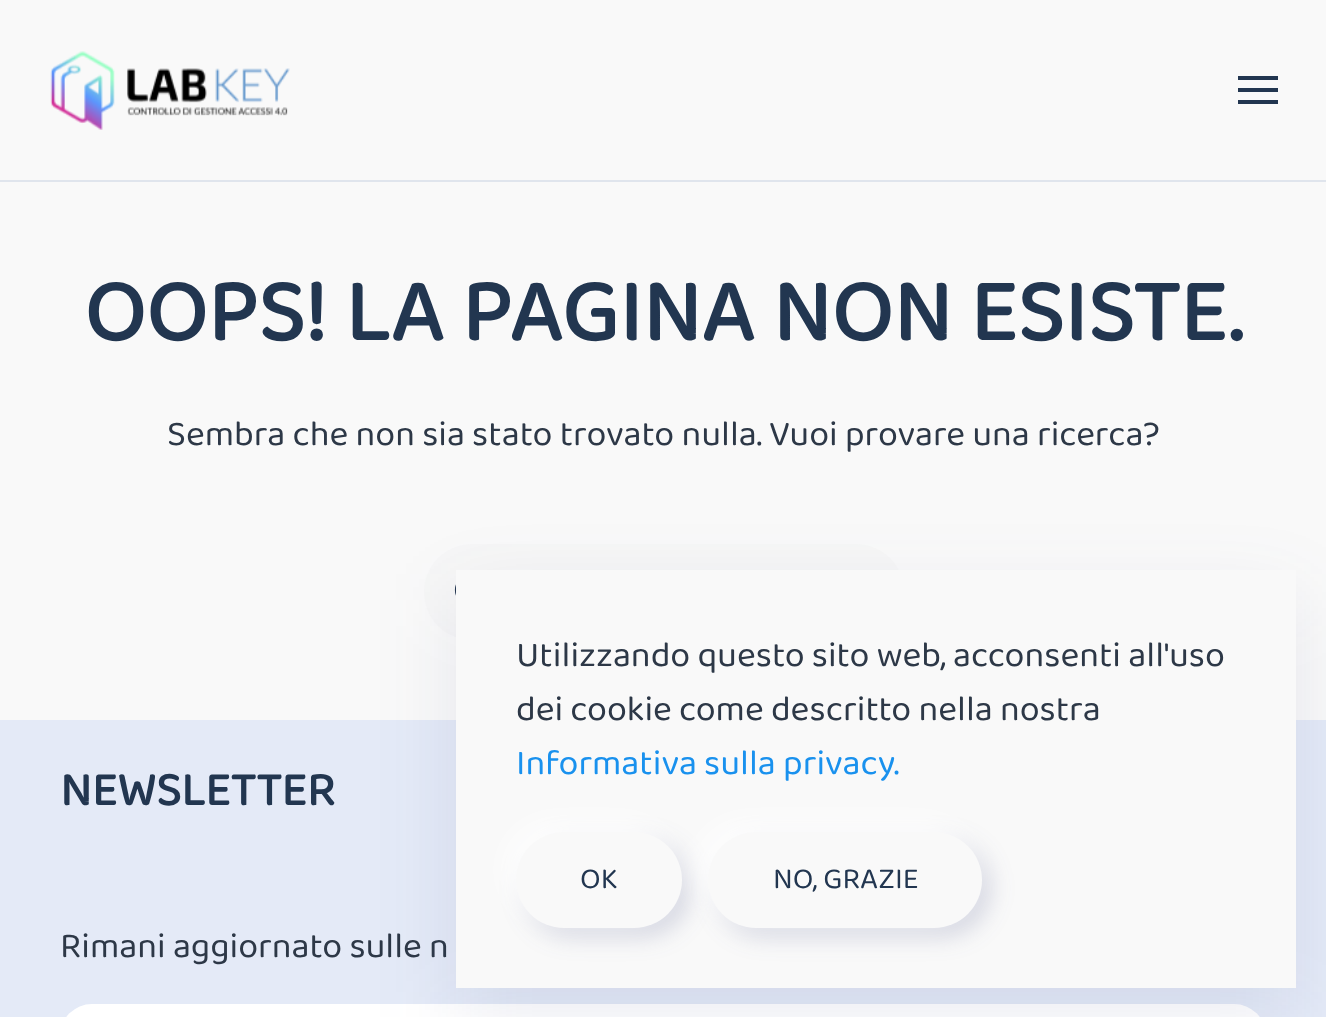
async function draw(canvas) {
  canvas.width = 1326;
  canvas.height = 1017;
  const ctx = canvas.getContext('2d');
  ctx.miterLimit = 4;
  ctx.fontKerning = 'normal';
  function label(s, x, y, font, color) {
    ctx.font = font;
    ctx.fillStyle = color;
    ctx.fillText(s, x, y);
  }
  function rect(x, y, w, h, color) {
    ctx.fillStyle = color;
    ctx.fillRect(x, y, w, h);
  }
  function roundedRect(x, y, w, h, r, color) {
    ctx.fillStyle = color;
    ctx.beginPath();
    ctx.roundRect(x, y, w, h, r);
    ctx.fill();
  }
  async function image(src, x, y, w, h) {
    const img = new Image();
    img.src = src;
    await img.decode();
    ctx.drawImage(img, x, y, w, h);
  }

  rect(0, 0, 1326, 1017, '#f9f9f9');
  rect(0, 180, 1326, 2, '#e0e5ed');
  await image('assets/img1.png', 50, 51, 240, 79);
  rect(1238, 76, 40, 4, '#223650');
  rect(1238, 88, 40, 4, '#223650');
  rect(1238, 100, 40, 4, '#223650');
  label('OOPS! LA PAGINA NON ESISTE.', 84, 340, 'bold 89.5px "Baloo 2"', '#223650');
  label('Sembra che non sia stato trovato nulla. Vuoi provare una ricerca?', 167, 445, '36px "Baloo 2"', '#2d3847');
  roundedRect(424, 544, 480, 96, 48, '#f6f6f6');
  ctx.beginPath();
  ctx.arc(470, 590, 14, 0, 2 * Math.PI);
  ctx.strokeStyle = '#223650';
  ctx.lineWidth = 2.2;
  ctx.stroke();
  rect(0, 720, 1326, 297, '#e4eaf7');
  label('NEWSLETTER', 60, 805, 'bold 48px "Baloo 2"', '#223650');
  label('Rimani aggiornato sulle n', 60, 957, '36px "Baloo 2"', '#2d3847');
  roundedRect(60, 1004, 1206, 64, 51, '#fff');
  ctx.fillStyle = '#39417c1a';
  ctx.filter = 'blur(40px)';
  ctx.beginPath();
  ctx.rect(456, 600, 840, 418);
  ctx.fill();
  ctx.filter = 'none';
  rect(456, 570, 840, 418, '#f9f9f9');
  label('Utilizzando questo sito web, acconsenti all\'uso', 516, 666, '36px "Baloo 2"', '#2d3847');
  label('dei cookie come descritto nella nostra', 516, 720, '36px "Baloo 2"', '#2d3847');
  label('Informativa sulla privacy.', 516, 774, '36px "Baloo 2"', '#1991ee');
  ctx.fillStyle = '#39417c33';
  ctx.filter = 'blur(12px)';
  ctx.beginPath();
  ctx.roundRect(524, 840, 166, 96, 48);
  ctx.fill();
  ctx.filter = 'none';
  ctx.fillStyle = '#ffffffe6';
  ctx.filter = 'blur(15px)';
  ctx.beginPath();
  ctx.roundRect(506, 822, 166, 96, 48);
  ctx.fill();
  ctx.filter = 'none';
  roundedRect(516, 832, 166, 96, 48, '#f9f9f9');
  label('OK', 580, 888, '30px "Baloo 2"', '#223650');
  ctx.fillStyle = '#39417c33';
  ctx.filter = 'blur(12px)';
  ctx.beginPath();
  ctx.roundRect(716, 840, 274, 96, 48);
  ctx.fill();
  ctx.filter = 'none';
  ctx.fillStyle = '#ffffffe6';
  ctx.filter = 'blur(15px)';
  ctx.beginPath();
  ctx.roundRect(698, 822, 274, 96, 48);
  ctx.fill();
  ctx.filter = 'none';
  roundedRect(708, 832, 274, 96, 48, '#f9f9f9');
  label('NO, GRAZIE', 773, 888, '30px "Baloo 2"', '#223650');
}

draw(document.querySelector('canvas'));
